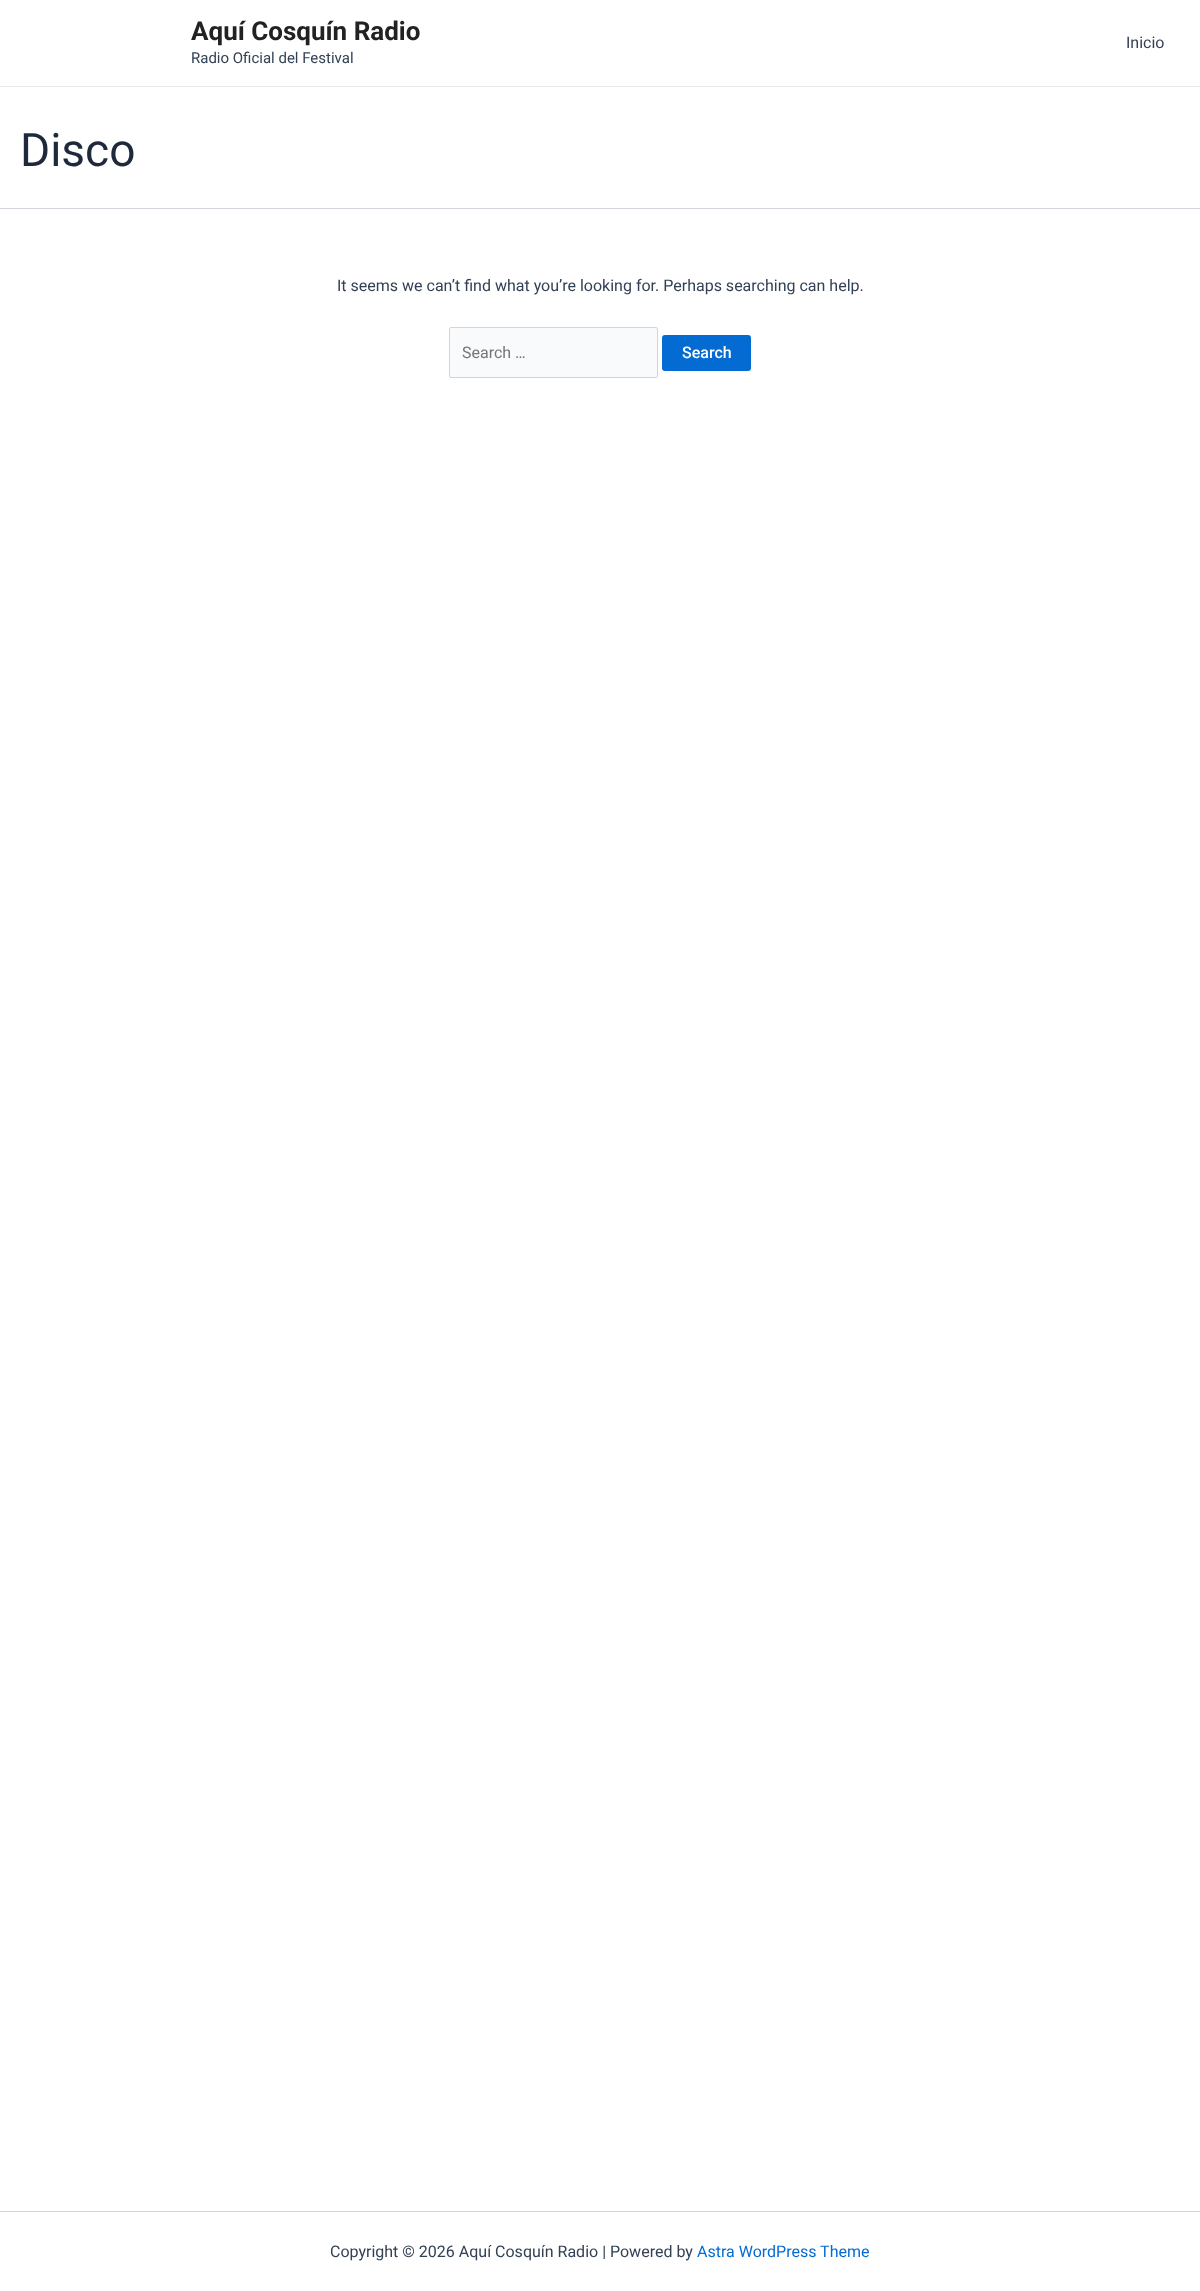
async function draw(canvas) {
  canvas.width = 1200;
  canvas.height = 2291;
  const ctx = canvas.getContext('2d');
  ctx.miterLimit = 4;
  ctx.fontKerning = 'normal';
  function label(s, x, y, font, color) {
    ctx.font = font;
    ctx.fillStyle = color;
    ctx.fillText(s, x, y);
  }
  function rect(x, y, w, h, color) {
    ctx.fillStyle = color;
    ctx.fillRect(x, y, w, h);
  }
  function roundedRect(x, y, w, h, r, color) {
    ctx.fillStyle = color;
    ctx.beginPath();
    ctx.roundRect(x, y, w, h, r);
    ctx.fill();
  }

  rect(0, 0, 1200, 2291, '#fff');
  rect(0, 86, 1200, 1, '#eaeaea');
  label('Aquí Cosquín Radio', 191, 40, 'bold 26px Roboto', '#222');
  label('Radio Oficial del Festival', 191, 63, '15px Roboto', '#334155');
  label('Inicio', 1126, 48, '16px Roboto', '#334155');
  rect(0, 208, 1200, 1, '#d1d5db');
  label('Disco', 20, 166, '46px Roboto', '#1e293b');
  label('It seems we can’t find what you’re looking for. Perhaps searching can help.', 337, 291, '16px Roboto', '#334155');
  ctx.fillStyle = '#f9fafb';
  ctx.beginPath();
  ctx.roundRect(449.5, 327.5, 208, 50, 1.5);
  ctx.fill();
  ctx.strokeStyle = '#d1d5db';
  ctx.stroke();
  label('Search …', 462, 358, '16px Roboto', '#757575');
  roundedRect(662, 335, 89, 36, 3, '#046bd2');
  label('Search', 682, 358, '500 16px Roboto', '#fff');
  rect(0, 2211, 1200, 1, '#d1d5db');
  label('Copyright © 2026 Aquí Cosquín Radio | Powered by', 330, 2257, '16px Roboto', '#334155');
  label('Astra WordPress Theme', 697, 2257, '16px Roboto', '#046bd2');
}

draw(document.querySelector('canvas'));
